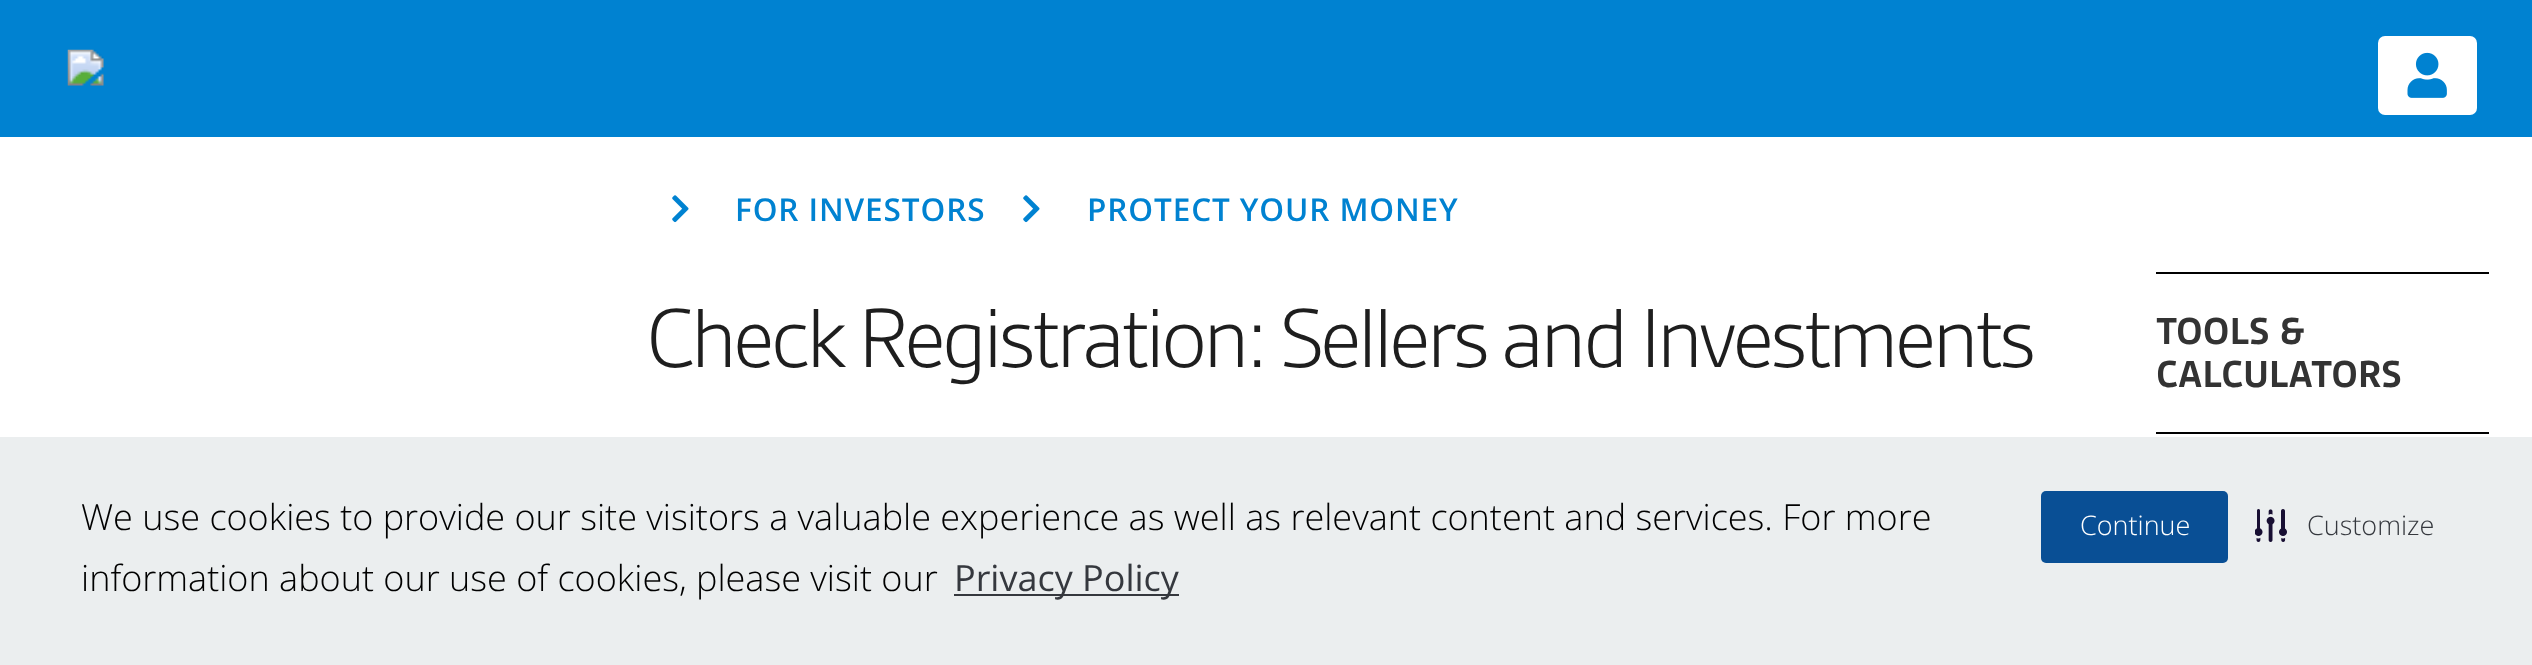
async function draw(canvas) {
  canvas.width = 2532;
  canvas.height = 665;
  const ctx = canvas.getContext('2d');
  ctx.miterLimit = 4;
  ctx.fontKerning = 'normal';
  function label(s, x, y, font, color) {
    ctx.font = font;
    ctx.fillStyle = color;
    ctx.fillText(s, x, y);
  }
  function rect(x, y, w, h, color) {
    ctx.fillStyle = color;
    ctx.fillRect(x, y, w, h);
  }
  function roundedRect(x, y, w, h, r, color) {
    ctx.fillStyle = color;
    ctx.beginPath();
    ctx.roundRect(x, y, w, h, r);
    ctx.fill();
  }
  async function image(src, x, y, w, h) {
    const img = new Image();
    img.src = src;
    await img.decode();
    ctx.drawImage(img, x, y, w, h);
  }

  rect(0, 0, 2532, 665, '#fff');
  rect(0, 0, 2532, 137, '#0082d1');
  await image('assets/img1.png', 67, 49, 37, 37);
  roundedRect(2378, 36, 99, 79, 7, '#fff');
  await image('assets/img2.png', 2407, 52, 40, 46);
  await image('assets/img3.png', 672, 195, 17, 28);
  ctx.letterSpacing = '0.9px';
  label('FOR INVESTORS', 735, 221, '600 31.5px Open Sans', '#0082d1');
  await image('assets/img3.png', 1023, 195, 17, 28);
  label('PROTECT YOUR MONEY', 1087, 221, '600 31.5px Open Sans', '#0082d1');
  ctx.letterSpacing = '-3.8px';
  label('Check Registration: Sellers and Investments', 647, 367, '300 90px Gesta', '#1e1e1e');
  rect(2156, 272, 333, 2, '#000');
  rect(2156, 432, 333, 2, '#000');
  ctx.letterSpacing = '0px';
  label('TOOLS &', 2156, 344, 'bold 36px Gesta', '#333');
  label('CALCULATORS', 2156, 387, 'bold 36px Gesta', '#333');
  rect(0, 437, 2532, 228, '#ebeeef');
  label('We use cookies to provide our site visitors a valuable experience as well as relevant content and services. For more', 81, 530, '300 36px Open Sans', '#000');
  label('information about our use of cookies, please visit our', 81, 591, '300 36px Open Sans', '#000');
  rect(954, 594, 225, 2, '#35383e');
  label('Privacy Policy', 954, 591, '36px Open Sans', '#35383e');
  roundedRect(2041, 491, 187, 72, 5, '#094f95');
  label('Continue', 2080, 535, '300 27px Open Sans', '#fff');
  await image('assets/img4.png', 2255, 509, 32, 33);
  label('Customize', 2307, 535, '300 27px Open Sans', '#35383e');
}

draw(document.querySelector('canvas'));
